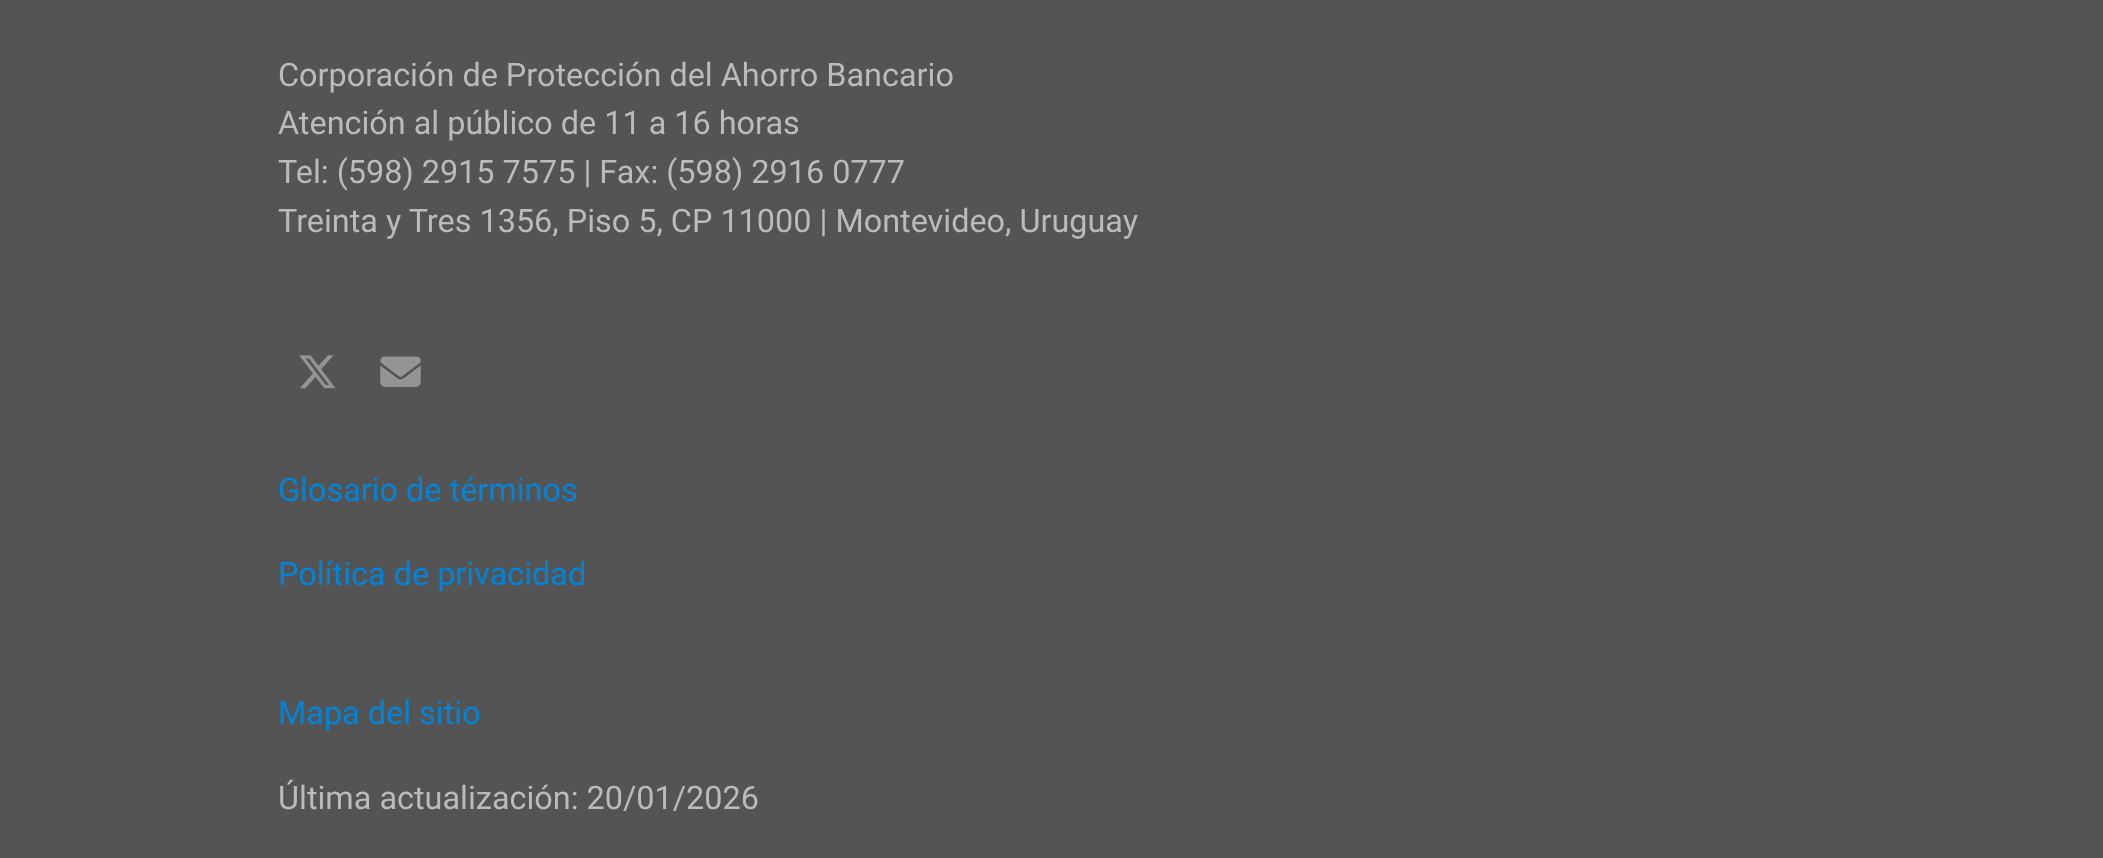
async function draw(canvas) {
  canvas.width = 2103;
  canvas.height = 858;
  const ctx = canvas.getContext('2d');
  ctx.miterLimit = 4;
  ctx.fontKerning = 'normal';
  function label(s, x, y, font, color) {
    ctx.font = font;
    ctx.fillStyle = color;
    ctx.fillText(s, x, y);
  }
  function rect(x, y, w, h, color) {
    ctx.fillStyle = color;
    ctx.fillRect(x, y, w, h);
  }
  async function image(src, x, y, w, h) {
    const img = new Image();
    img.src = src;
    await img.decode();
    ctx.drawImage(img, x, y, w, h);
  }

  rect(0, 0, 2103, 858, '#545454');
  label('Corporación de Protección del Ahorro Bancario', 278, 86, '32.4px Roboto', '#bbb');
  label('Atención al público de 11 a 16 horas', 278, 134, '32.4px Roboto', '#bbb');
  label('Tel: (598) 2915 7575 | Fax: (598) 2916 0777', 278, 183, '32.4px Roboto', '#bbb');
  label('Treinta y Tres 1356, Piso 5, CP 11000 | Montevideo, Uruguay', 278, 232, '32.4px Roboto', '#bbb');
  await image('assets/img1.png', 299, 355, 37, 34);
  await image('assets/img2.png', 380, 356, 41, 31);
  label('Glosario de términos', 278, 501, '32.4px Roboto', '#0185da');
  label('Política de privacidad', 278, 585, '32.4px Roboto', '#0185da');
  label('Mapa del sitio', 278, 724, '32.4px Roboto', '#0185da');
  label('Última actualización: 20/01/2026', 278, 809, '32.4px Roboto', '#bbb');
}

draw(document.querySelector('canvas'));
